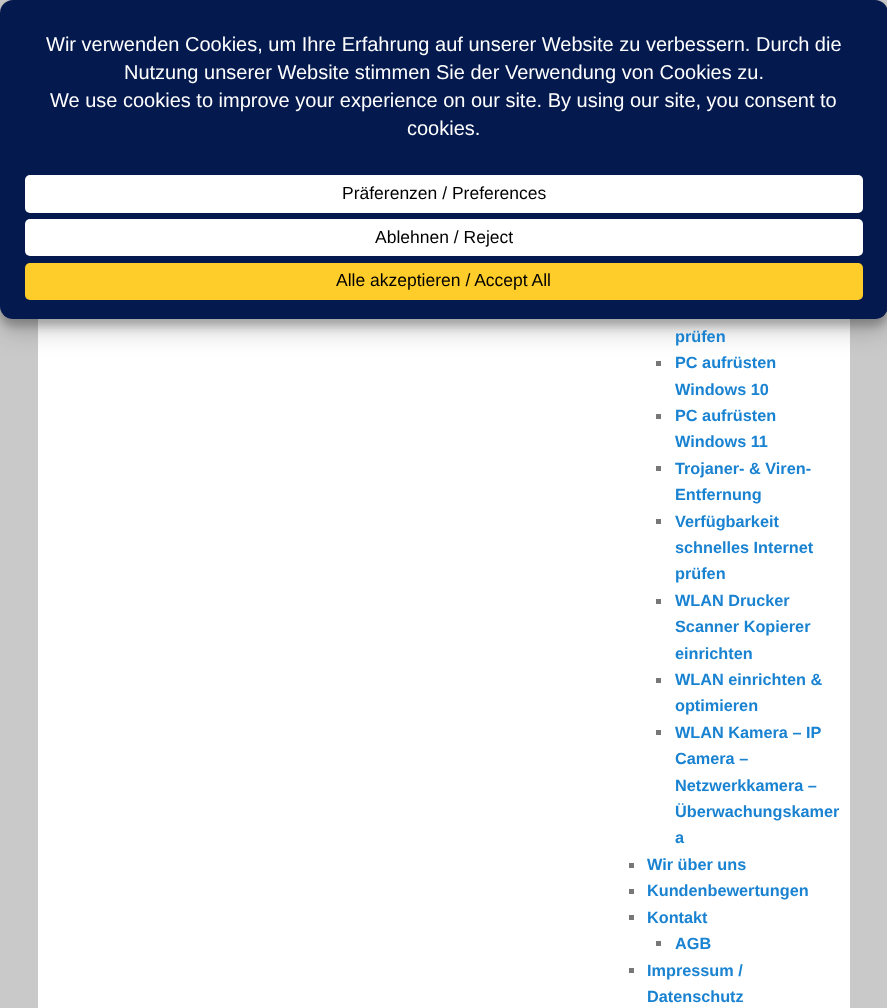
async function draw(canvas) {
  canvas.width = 887;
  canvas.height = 1008;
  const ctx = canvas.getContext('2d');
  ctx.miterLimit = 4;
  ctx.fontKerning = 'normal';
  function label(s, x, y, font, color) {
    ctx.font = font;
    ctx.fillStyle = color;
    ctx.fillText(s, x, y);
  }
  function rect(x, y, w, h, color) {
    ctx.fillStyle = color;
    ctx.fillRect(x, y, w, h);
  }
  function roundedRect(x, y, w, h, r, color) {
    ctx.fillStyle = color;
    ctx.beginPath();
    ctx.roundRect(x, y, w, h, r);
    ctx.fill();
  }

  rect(0, 0, 887, 1008, '#c9c9c9');
  rect(38, 319, 812, 689, '#fff');
  ctx.fillStyle = '#0000003b';
  ctx.filter = 'blur(4px)';
  ctx.beginPath();
  ctx.roundRect(0, 8, 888, 318, 13);
  ctx.fill();
  ctx.filter = 'none';
  rect(656, 361, 5, 5, '#777');
  ctx.fillStyle = '#00000030';
  ctx.filter = 'blur(12.5px)';
  ctx.beginPath();
  ctx.roundRect(0, 13, 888, 318, 13);
  ctx.fill();
  ctx.filter = 'none';
  roundedRect(0, 0, 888, 319, 13, '#04194e');
  label('Wir verwenden Cookies, um Ihre Erfahrung auf unserer Website zu verbessern. Durch die', 46, 51, '20px Liberation Sans', '#fff');
  label('Nutzung unserer Website stimmen Sie der Verwendung von Cookies zu.', 124, 79, '20px Liberation Sans', '#fff');
  label('We use cookies to improve your experience on our site. By using our site, you consent to', 50, 107, '20px Liberation Sans', '#fff');
  label('cookies.', 407, 135, '20px Liberation Sans', '#fff');
  roundedRect(25, 175, 838, 38, 5, '#fff');
  label('Präferenzen / Preferences', 342, 199, '17.5px Liberation Sans', '#000');
  roundedRect(25, 219, 838, 37, 5, '#fff');
  label('Ablehnen / Reject', 375, 243, '17.5px Liberation Sans', '#000');
  roundedRect(25, 263, 838, 37, 5, '#ffcd2a');
  label('Alle akzeptieren / Accept All', 336, 286, '17.5px Liberation Sans', '#000');
  label('prüfen', 675, 342, 'bold 16.25px Liberation Sans', '#1982d1');
  label('PC aufrüsten', 675, 368, 'bold 16.25px Liberation Sans', '#1982d1');
  label('Windows 10', 675, 395, 'bold 16.25px Liberation Sans', '#1982d1');
  rect(656, 414, 5, 5, '#777');
  label('PC aufrüsten', 675, 421, 'bold 16.25px Liberation Sans', '#1982d1');
  label('Windows 11', 675, 447, 'bold 16.25px Liberation Sans', '#1982d1');
  rect(656, 466, 5, 5, '#777');
  label('Trojaner- & Viren-', 675, 474, 'bold 16.25px Liberation Sans', '#1982d1');
  label('Entfernung', 675, 500, 'bold 16.25px Liberation Sans', '#1982d1');
  rect(656, 519, 5, 5, '#777');
  label('Verfügbarkeit', 675, 527, 'bold 16.25px Liberation Sans', '#1982d1');
  label('schnelles Internet', 675, 553, 'bold 16.25px Liberation Sans', '#1982d1');
  label('prüfen', 675, 579, 'bold 16.25px Liberation Sans', '#1982d1');
  rect(656, 599, 5, 5, '#777');
  label('WLAN Drucker', 675, 606, 'bold 16.25px Liberation Sans', '#1982d1');
  label('Scanner Kopierer', 675, 632, 'bold 16.25px Liberation Sans', '#1982d1');
  label('einrichten', 675, 659, 'bold 16.25px Liberation Sans', '#1982d1');
  rect(656, 678, 5, 5, '#777');
  label('WLAN einrichten &', 675, 685, 'bold 16.25px Liberation Sans', '#1982d1');
  label('optimieren', 675, 711, 'bold 16.25px Liberation Sans', '#1982d1');
  rect(656, 730, 5, 5, '#777');
  label('WLAN Kamera – IP', 675, 738, 'bold 16.25px Liberation Sans', '#1982d1');
  label('Camera –', 675, 764, 'bold 16.25px Liberation Sans', '#1982d1');
  label('Netzwerkkamera –', 675, 791, 'bold 16.25px Liberation Sans', '#1982d1');
  label('Überwachungskamer', 675, 817, 'bold 16.25px Liberation Sans', '#1982d1');
  label('a', 675, 843, 'bold 16.25px Liberation Sans', '#1982d1');
  rect(629, 863, 5, 5, '#777');
  label('Wir über uns', 647, 870, 'bold 16.25px Liberation Sans', '#1982d1');
  rect(629, 889, 5, 5, '#777');
  label('Kundenbewertungen', 647, 896, 'bold 16.25px Liberation Sans', '#1982d1');
  rect(629, 915, 5, 5, '#777');
  label('Kontakt', 647, 923, 'bold 16.25px Liberation Sans', '#1982d1');
  rect(656, 941, 5, 5, '#777');
  label('AGB', 675, 949, 'bold 16.25px Liberation Sans', '#1982d1');
  rect(629, 968, 5, 5, '#777');
  label('Impressum /', 647, 976, 'bold 16.25px Liberation Sans', '#1982d1');
  label('Datenschutz', 647, 1002, 'bold 16.25px Liberation Sans', '#1982d1');
}

draw(document.querySelector('canvas'));
